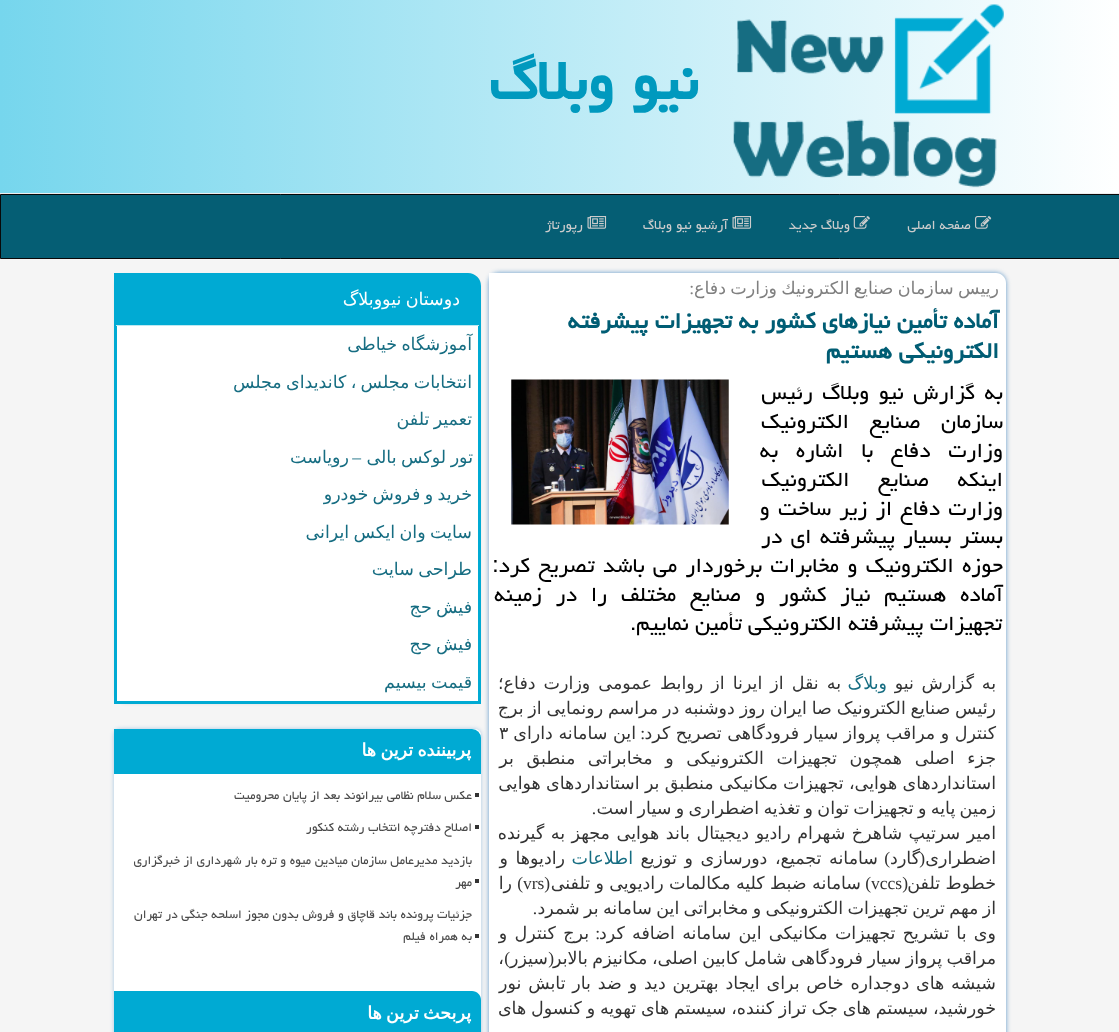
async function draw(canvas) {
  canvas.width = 1119;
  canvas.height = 1032;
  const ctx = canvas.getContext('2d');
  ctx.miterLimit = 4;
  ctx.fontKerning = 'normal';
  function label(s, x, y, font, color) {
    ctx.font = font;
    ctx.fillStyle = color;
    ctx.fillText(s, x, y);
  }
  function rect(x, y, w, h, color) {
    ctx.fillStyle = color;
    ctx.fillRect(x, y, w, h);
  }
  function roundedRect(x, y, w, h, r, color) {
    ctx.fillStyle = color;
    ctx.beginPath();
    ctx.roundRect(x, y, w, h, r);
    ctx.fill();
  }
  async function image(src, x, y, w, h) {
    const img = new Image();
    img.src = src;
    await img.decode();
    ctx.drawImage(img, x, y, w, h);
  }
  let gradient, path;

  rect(0, 0, 1119, 1032, '#f5f5f5');
  gradient = ctx.createLinearGradient(0, 95, 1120, 95);
  gradient.addColorStop(0, '#76d6ed');
  gradient.addColorStop(1, '#fff');
  ctx.fillStyle = gradient;
  ctx.fillRect(0, 0, 1119, 193);
  rect(0, 193, 1119, 1, '#eee');
  await image('assets/img1.png', 733, 4, 271, 184);
  ctx.direction = 'rtl';
  label('نیو وبلاگ', 698, 99, 'bold 70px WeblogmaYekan', '#0099be');
  ctx.fillStyle = '#055e74';
  ctx.beginPath();
  ctx.rect(0.5, 194.5, 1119, 64);
  ctx.fill();
  ctx.strokeStyle = '#080808';
  ctx.stroke();
  await image('assets/img2.png', 975, 216, 17, 13);
  label('صفحه اصلی', 971, 229, '16.25px WeblogmaYekan', '#ccc');
  await image('assets/img3.png', 853, 216, 17, 13);
  label('وبلاگ جدید', 850, 229, '16.25px WeblogmaYekan', '#ccc');
  await image('assets/img4.png', 732, 216, 20, 13);
  label('آرشیو نیو وبلاگ', 728, 229, '16.25px WeblogmaYekan', '#ccc');
  await image('assets/img4.png', 587, 216, 20, 13);
  label('رپورتاژ', 583, 229, '16.25px WeblogmaYekan', '#ccc');
  ctx.fillStyle = '#5e97c8';
  ctx.filter = 'blur(2.5px)';
  ctx.beginPath();
  ctx.roundRect(489, 273, 517, 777, 10);
  ctx.fill();
  ctx.filter = 'none';
  ctx.fillStyle = '#fff';
  path = new Path2D('M489 273H996C1001.5 273 1006 277.5 1006 283V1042H489Z');
  ctx.fill(path);
  ctx.wordSpacing = '-1.25px';
  label('رییس سازمان صنایع الكترونیك وزارت دفاع', 999, 294, '17.5px DejaVu Sans', '#808080');
  ctx.wordSpacing = '0px';
  label(':', 694, 294, '17.5px Liberation Serif', '#808080');
  label('آماده تأمین نیازهای كشور به تجهیزات پیشرفته', 999, 328, 'bold 28px WeblogmaYekan', '#005d74');
  label('الكترونیكی هستیم', 999, 358, 'bold 28px WeblogmaYekan', '#005d74');
  ctx.wordSpacing = '3px';
  label('به گزارش نیو وبلاگ رئیس', 1003, 399, '26.25px WeblogmaYekan', '#000');
  await image('assets/img5.png', 511, 379, 218, 146);
  ctx.wordSpacing = '14px';
  label('سازمان صنایع الكترونیك', 1003, 428, '26.25px WeblogmaYekan', '#000');
  ctx.wordSpacing = '11.5px';
  label('وزارت دفاع با اشاره به', 1003, 457, '26.25px WeblogmaYekan', '#000');
  ctx.wordSpacing = '22px';
  label('اینكه صنایع الكترونیك', 1003, 486, '26.25px WeblogmaYekan', '#000');
  ctx.wordSpacing = '2px';
  label('وزارت دفاع از زیر ساخت و', 1003, 515, '26.25px WeblogmaYekan', '#000');
  label('بستر بسیار پیشرفته ای در', 1003, 543, '26.25px WeblogmaYekan', '#000');
  label('حوزه الكترونیك و مخابرات برخوردار می باشد تصریح كرد:', 1003, 572, '26.25px WeblogmaYekan', '#000');
  ctx.wordSpacing = '7.5px';
  label('آماده هستیم نیاز كشور و صنایع مختلف را در زمینه', 1003, 601, '26.25px WeblogmaYekan', '#000');
  ctx.wordSpacing = '0px';
  label('تجهیزات پیشرفته الكترونیكی تأمین نماییم.', 1002, 630, '26.25px WeblogmaYekan', '#000');
  ctx.wordSpacing = '2px';
  label('به گزارش نیو', 996, 689, '17.5px DejaVu Sans', '#333');
  ctx.wordSpacing = '0px';
  label('وبلاگ', 887, 689, '17.5px DejaVu Sans', '#166d82');
  ctx.wordSpacing = '2.5px';
  label('به نقل از ایرنا از روابط عمومی وزارت دفاع؛', 841, 689, '17.5px DejaVu Sans', '#333');
  ctx.wordSpacing = '-0.75px';
  label('رئیس صنایع الکترونیک صا ایران روز دوشنبه در مراسم رونمایی از برج', 996, 714, '17.5px DejaVu Sans', '#333');
  ctx.wordSpacing = '0px';
  label('کنترل و مراقب پرواز سیار فرودگاهی تصریح کرد', 996, 739, '17.5px DejaVu Sans', '#333');
  label(':', 645, 739, '17.5px Liberation Serif', '#333');
  label('این سامانه دارای', 636, 739, '17.5px DejaVu Sans', '#333');
  ctx.direction = 'ltr';
  label('۳', 499, 739, '17.5px DejaVu Sans', '#333');
  ctx.wordSpacing = '7px';
  ctx.direction = 'rtl';
  label('جزء اصلی همچون تجهیزات الکترونیکی و مخابراتی منطبق بر', 996, 764, '17.5px DejaVu Sans', '#333');
  ctx.wordSpacing = '-0.25px';
  label('استانداردهای هوایی، تجهیزات مکانیکی منطبق بر استانداردهای هوایی', 996, 789, '17.5px DejaVu Sans', '#333');
  ctx.wordSpacing = '-1.25px';
  label('زمین پایه و تجهیزات توان و تغذیه اضطراری و سیار است', 996, 814, '17.5px DejaVu Sans', '#333');
  ctx.wordSpacing = '0px';
  label('.', 596, 814, '17.5px Liberation Serif', '#333');
  ctx.wordSpacing = '1px';
  label('امیر سرتیپ شاهرخ شهرام رادیو دیجیتال باند هوایی مجهز به گیرنده', 996, 839, '17.5px DejaVu Sans', '#333');
  ctx.wordSpacing = '0px';
  label('اضطراری', 996, 864, '17.5px DejaVu Sans', '#333');
  label('(', 925, 864, '17.5px Liberation Serif', '#333');
  label('گارد', 920, 864, '17.5px DejaVu Sans', '#333');
  label(')', 890, 864, '17.5px Liberation Serif', '#333');
  ctx.wordSpacing = '2px';
  label('سامانه تجمیع، دورسازی و توزیع', 878, 864, '17.5px DejaVu Sans', '#333');
  ctx.wordSpacing = '0px';
  label('اطلاعات', 633, 864, '17.5px DejaVu Sans', '#166d82');
  ctx.wordSpacing = '2px';
  label('رادیوها و', 565, 864, '17.5px DejaVu Sans', '#333');
  ctx.wordSpacing = '0px';
  label('خطوط تلفن', 996, 889, '17.5px DejaVu Sans', '#333');
  label('(', 908, 889, '17.5px Liberation Serif', '#333');
  label(')', 871, 889, '17.5px Liberation Serif', '#333');
  ctx.direction = 'ltr';
  label('vccs', 871, 889, '17.5px Liberation Serif', '#333');
  ctx.wordSpacing = '-0.25px';
  ctx.direction = 'rtl';
  label('سامانه ضبط کلیه مکالمات رادیویی و تلفنی', 861, 889, '17.5px DejaVu Sans', '#333');
  ctx.wordSpacing = '0px';
  label('(', 550, 889, '17.5px Liberation Serif', '#333');
  ctx.direction = 'ltr';
  label('vrs', 523, 889, '17.5px Liberation Serif', '#333');
  ctx.direction = 'rtl';
  label(')', 523, 889, '17.5px Liberation Serif', '#333');
  label('را', 512, 889, '17.5px DejaVu Sans', '#333');
  ctx.wordSpacing = '-1.25px';
  label('از مهم ترین تجهیزات الکترونیکی و مخابراتی این سامانه بر شمرد', 996, 914, '17.5px DejaVu Sans', '#333');
  ctx.wordSpacing = '0px';
  label('.', 537, 914, '17.5px Liberation Serif', '#333');
  ctx.wordSpacing = '1.75px';
  label('وی با تشریح تجهیزات مکانیکی این سامانه اضافه کرد', 996, 939, '17.5px DejaVu Sans', '#333');
  ctx.wordSpacing = '0px';
  label(':', 600, 939, '17.5px Liberation Serif', '#333');
  ctx.wordSpacing = '1.75px';
  label('برج کنترل و', 589, 939, '17.5px DejaVu Sans', '#333');
  ctx.wordSpacing = '0px';
  label('(', 554, 964, '17.5px Liberation Serif', '#333');
  ctx.wordSpacing = '-1px';
  label('مراقب پرواز سیار فرودگاهی شامل کابین اصلی، مکانیزم بالابر', 996, 964, '17.5px DejaVu Sans', '#333');
  ctx.wordSpacing = '0px';
  label(')', 510, 964, '17.5px Liberation Serif', '#333');
  label('سیزر', 548, 964, '17.5px DejaVu Sans', '#333');
  label('،', 504, 964, '17.5px DejaVu Sans', '#333');
  ctx.wordSpacing = '1.25px';
  label('شیشه های دوجداره خاص برای ایجاد بهترین دید و ضد بار تابش نور', 996, 989, '17.5px DejaVu Sans', '#333');
  ctx.wordSpacing = '-0.8px';
  label('خورشید، سیستم های جک تراز کننده، سیستم های تهویه و کنسول های', 996, 1014, '17.5px DejaVu Sans', '#333');
  ctx.fillStyle = '#0000000d';
  ctx.filter = 'blur(1px)';
  ctx.beginPath();
  ctx.roundRect(114, 274, 367, 431, 13);
  ctx.fill();
  ctx.filter = 'none';
  ctx.fillStyle = '#fff';
  ctx.beginPath();
  ctx.roundRect(115.5, 274.5, 364, 428, [0, 11.5, 0, 0]);
  ctx.fill();
  ctx.strokeStyle = '#00aad3';
  ctx.lineWidth = 3;
  ctx.stroke();
  ctx.fillStyle = '#00aad3';
  ctx.beginPath();
  ctx.roundRect(116, 275, 363, 51, [0, 8, 0, 0]);
  ctx.fill();
  rect(116, 325, 363, 1, '#bce8f1');
  ctx.wordSpacing = '-1.25px';
  label('دوستان نیووبلاگ', 460, 305, '17.5px DejaVu Sans', '#fff');
  label('آموزشگاه خیاطی', 472, 350, '17.5px DejaVu Sans', '#166d82');
  label('انتخابات مجلس ، کاندیدای مجلس', 472, 388, '17.5px DejaVu Sans', '#166d82');
  label('تعمیر تلفن', 472, 425, '17.5px DejaVu Sans', '#166d82');
  ctx.wordSpacing = '-1px';
  label('تور لوکس بالی', 473, 463, '17.5px DejaVu Sans', '#166d82');
  ctx.wordSpacing = '0px';
  label('–', 361, 463, '17.5px Liberation Serif', '#166d82');
  label('رویاست', 349, 463, '17.5px DejaVu Sans', '#166d82');
  ctx.wordSpacing = '-1.25px';
  label('خرید و فروش خودرو', 472, 500, '17.5px DejaVu Sans', '#166d82');
  label('سایت وان ایکس ایرانی', 472, 538, '17.5px DejaVu Sans', '#166d82');
  label('طراحی سایت', 472, 575, '17.5px DejaVu Sans', '#166d82');
  label('فیش حج', 472, 613, '17.5px DejaVu Sans', '#166d82');
  label('فیش حج', 472, 650, '17.5px DejaVu Sans', '#166d82');
  label('قیمت بیسیم', 472, 688, '17.5px DejaVu Sans', '#166d82');
  ctx.fillStyle = '#a6c6e2';
  ctx.filter = 'blur(2px)';
  ctx.beginPath();
  ctx.roundRect(114, 729, 367, 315, 6);
  ctx.fill();
  ctx.filter = 'none';
  roundedRect(114, 729, 367, 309, 6, '#fff');
  ctx.fillStyle = '#00aad3';
  ctx.beginPath();
  ctx.roundRect(114, 729, 367, 45, [0, 9, 0, 0]);
  ctx.fill();
  label('پربیننده ترین ها', 471, 756, 'bold 17.5px DejaVu Sans', '#fff');
  rect(475, 793, 4, 4, '#333');
  ctx.wordSpacing = '0px';
  label('عکس سلام نظامی بیرانوند بعد از پایان محرومیت', 472, 799, '15px WeblogmaYekan', '#4a4a4a');
  rect(475, 825, 4, 4, '#333');
  label('اصلاح دفترچه انتخاب رشته کنکور', 472, 831, '15px WeblogmaYekan', '#4a4a4a');
  rect(475, 879, 4, 4, '#333');
  label('بازدید مدیرعامل سازمان میادین میوه و تره بار شهرداری از خبرگزاری', 472, 864, '15px WeblogmaYekan', '#4a4a4a');
  label('مهر', 472, 886, '15px WeblogmaYekan', '#4a4a4a');
  rect(475, 934, 4, 4, '#333');
  label('جزئیات پرونده باند قاچاق و فروش بدون مجوز اسلحه جنگی در تهران', 472, 918, '15px WeblogmaYekan', '#4a4a4a');
  label('به همراه فیلم', 472, 940, '15px WeblogmaYekan', '#4a4a4a');
  ctx.fillStyle = '#00aad3';
  path = new Path2D('M114 991H472C477 991 481 995 481 1000V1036H114Z');
  ctx.fill(path);
  ctx.wordSpacing = '-1.25px';
  label('پربحث ترین ها', 471, 1019, 'bold 17.5px DejaVu Sans', '#fff');
}

draw(document.querySelector('canvas'));
